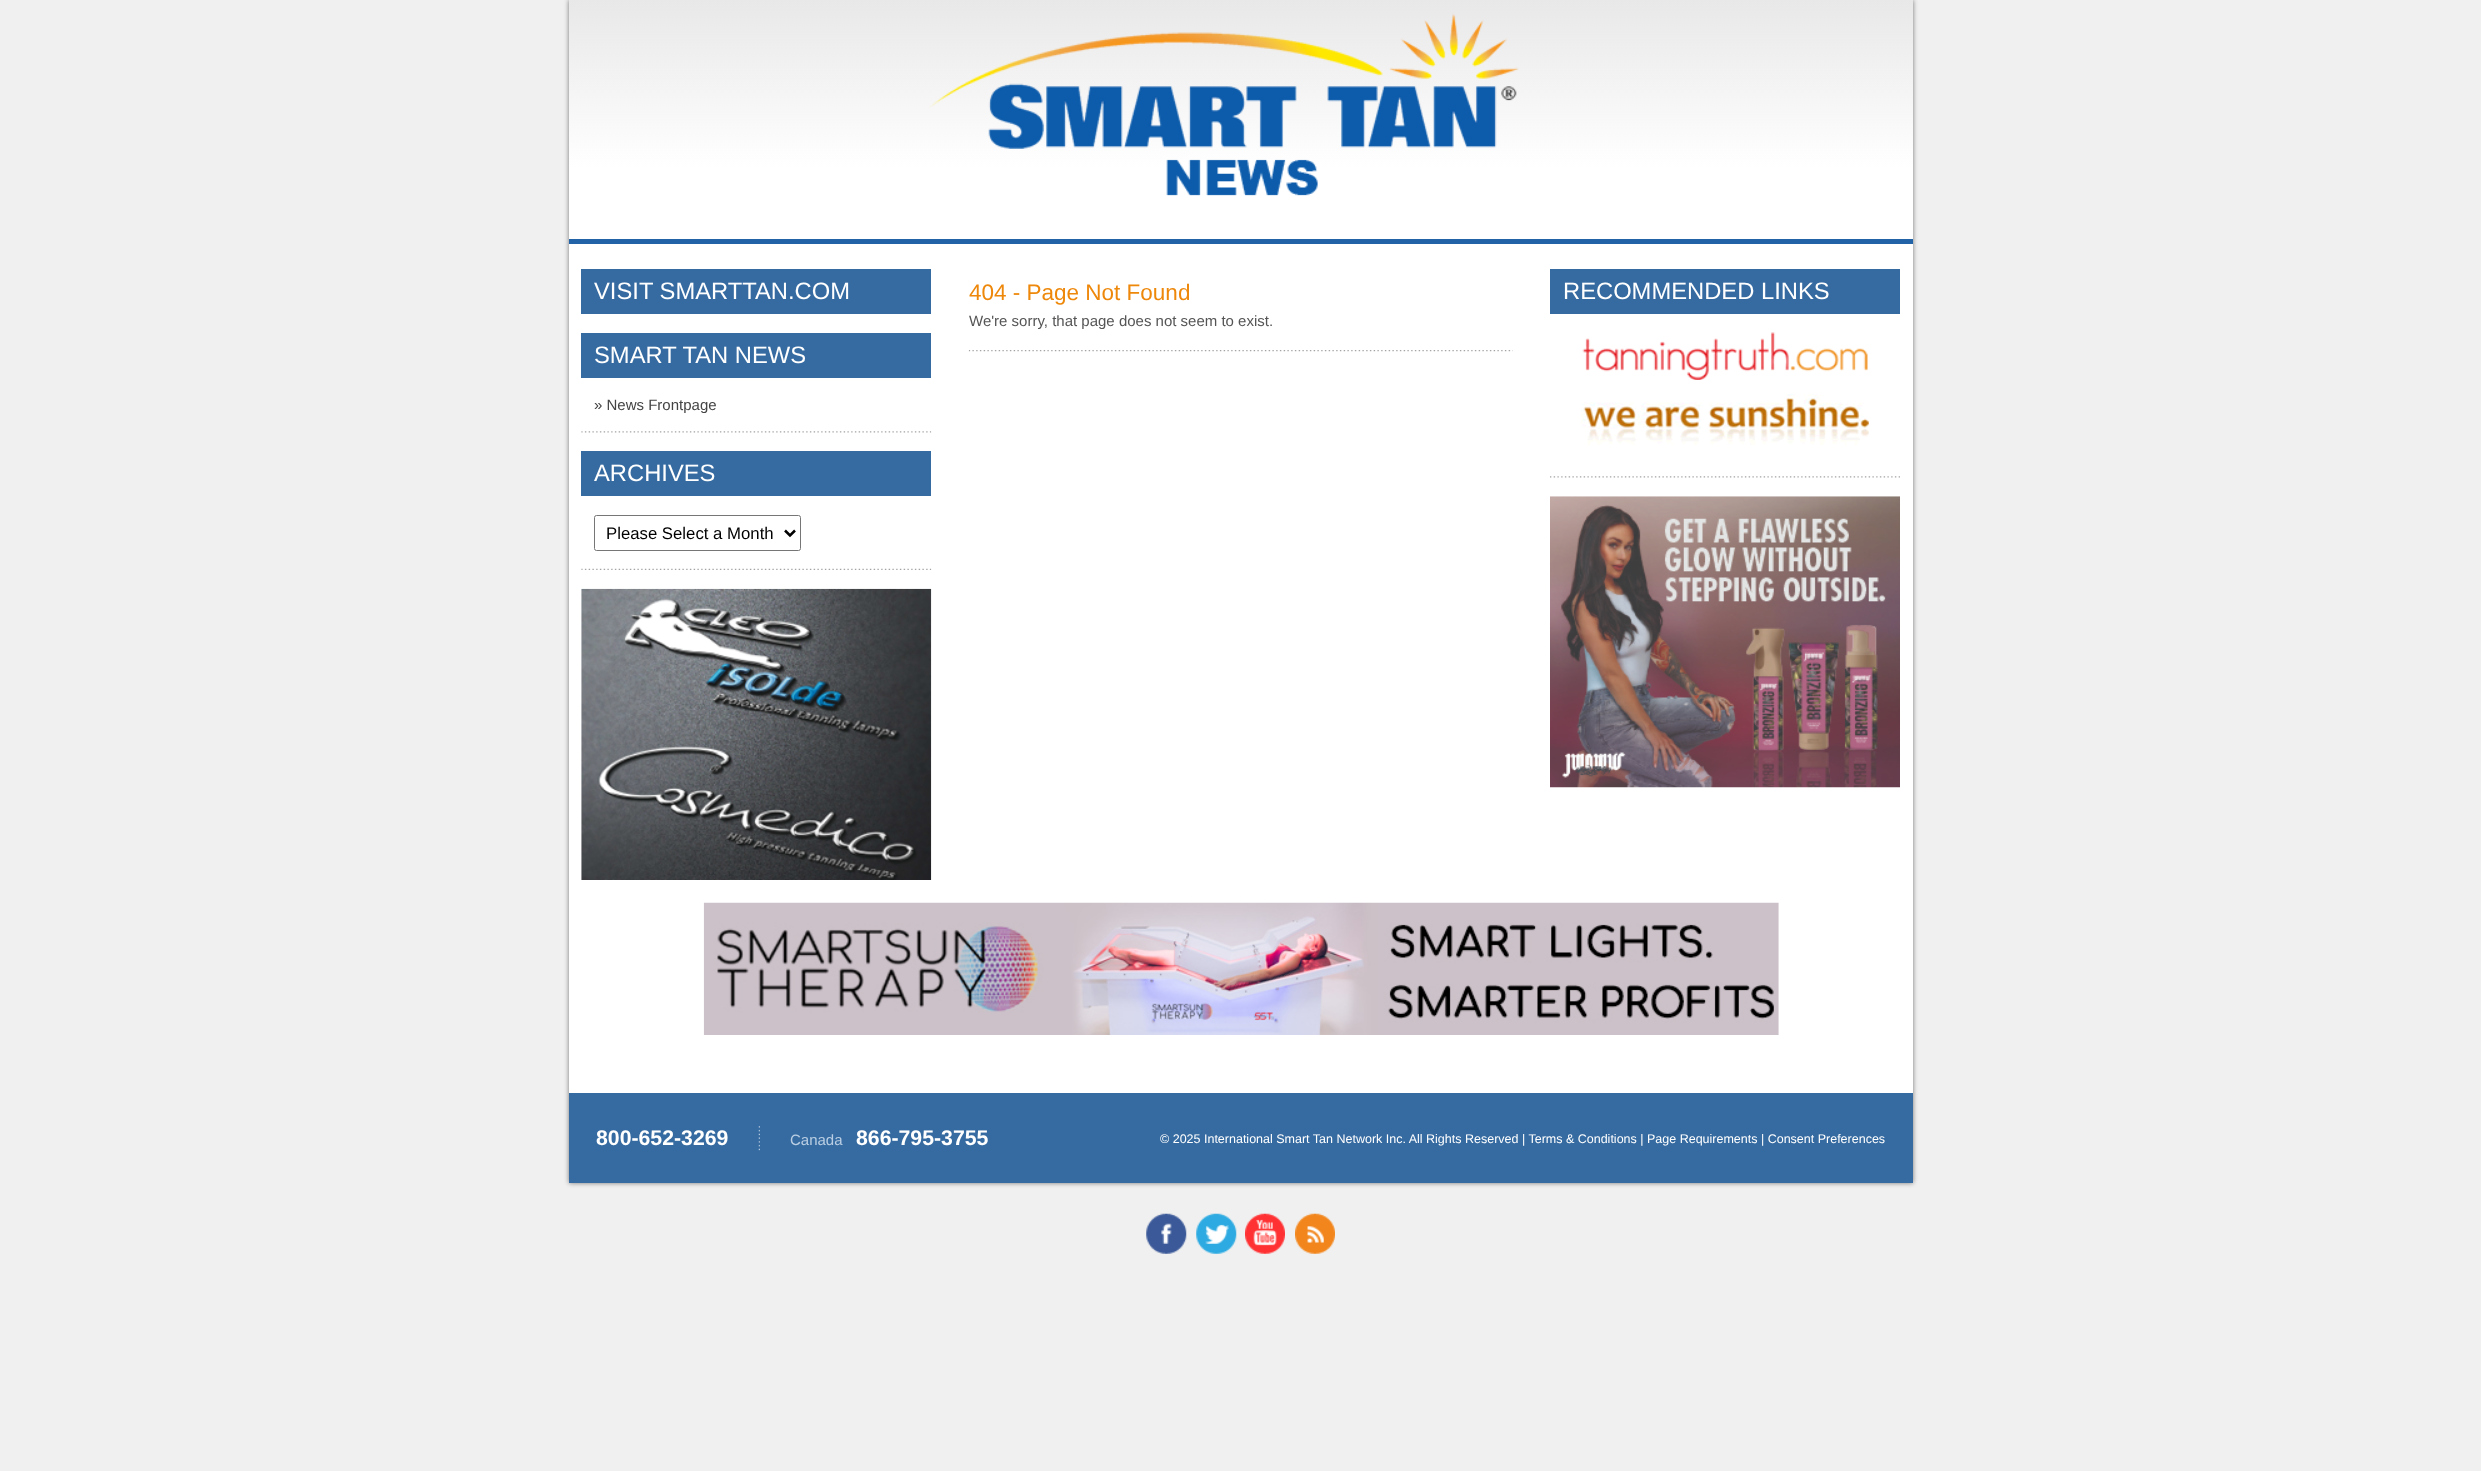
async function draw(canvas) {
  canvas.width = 2481;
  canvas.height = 1471;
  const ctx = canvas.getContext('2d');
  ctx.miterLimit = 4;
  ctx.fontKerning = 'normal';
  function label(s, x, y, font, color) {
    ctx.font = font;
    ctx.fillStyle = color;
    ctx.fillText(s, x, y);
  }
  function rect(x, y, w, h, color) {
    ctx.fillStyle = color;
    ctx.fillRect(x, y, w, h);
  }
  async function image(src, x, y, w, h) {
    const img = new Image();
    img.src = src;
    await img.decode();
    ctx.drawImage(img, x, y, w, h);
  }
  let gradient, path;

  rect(0, 0, 2481, 1471, '#f0f0f0');
  ctx.fillStyle = '#777';
  ctx.filter = 'blur(2.5px)';
  ctx.beginPath();
  ctx.rect(569, 0, 1344, 1183);
  ctx.fill();
  ctx.filter = 'none';
  rect(569, 244, 1344, 849, '#fff');
  gradient = ctx.createLinearGradient(1241, 0, 1241, 239);
  gradient.addColorStop(0, '#e8e8e8');
  gradient.addColorStop(0.7, '#fff');
  ctx.fillStyle = gradient;
  ctx.fillRect(569, 0, 1344, 239);
  rect(569, 239, 1344, 5, '#2163a6');
  await image('assets/img1.png', 929, 13, 590, 183);
  rect(581, 269, 350, 45, '#366ba1');
  label('VISIT SMARTTAN.COM', 594, 299, '23.75px Liberation Sans', '#fff');
  await image('assets/img2.png', 581, 431, 351, 2);
  rect(581, 333, 350, 45, '#366ba1');
  label('SMART TAN NEWS', 594, 363, '23.75px Liberation Sans', '#fff');
  label('» News Frontpage', 594, 410, '15px Liberation Sans', '#444');
  await image('assets/img3.png', 581, 568, 351, 2);
  rect(581, 451, 350, 45, '#366ba1');
  label('ARCHIVES', 594, 481, '23.75px Liberation Sans', '#fff');
  ctx.beginPath();
  ctx.roundRect(594.5, 515.5, 206, 35, 2);
  ctx.strokeStyle = '#767676';
  ctx.stroke();
  path = new Path2D('M785 530.5L790 535.5L795 530.5');
  ctx.strokeStyle = '#000';
  ctx.lineWidth = 2.5;
  ctx.stroke(path);
  label('Please Select a Month', 606, 539, '16.75px Liberation Sans', '#000');
  await image('assets/img4.png', 581, 588, 351, 292);
  label('404 - Page Not Found', 969, 300, '22.5px Liberation Sans', '#ee880b');
  await image('assets/img5.png', 968, 350, 545, 2);
  label('We\'re sorry, that page does not seem to exist.', 969, 326, '15px Liberation Sans', '#555');
  await image('assets/img6.png', 1550, 476, 350, 2);
  rect(1550, 269, 350, 45, '#366ba1');
  label('RECOMMENDED LINKS', 1563, 299, '23.75px Liberation Sans', '#fff');
  await image('assets/img7.png', 1582, 332, 286, 48);
  await image('assets/img8.png', 1581, 394, 288, 51);
  await image('assets/img9.png', 1550, 496, 350, 292);
  await image('assets/img10.png', 703, 902, 1076, 133);
  rect(569, 1093, 1344, 90, '#366ba1');
  await image('assets/img11.png', 758, 1126, 2, 25);
  label('800-652-3269', 596, 1145, 'bold 21.25px Liberation Sans', '#fff');
  label('Canada', 790, 1145, '15px Liberation Sans', '#bacee3');
  label('866-795-3755', 856, 1145, 'bold 21.25px Liberation Sans', '#fff');
  label('© 2025 International Smart Tan Network Inc. All Rights Reserved | Terms & Conditions | Page Requirements | Consent Preferences', 1160, 1143, '12.5px Liberation Sans', '#fff');
  await image('assets/img12.png', 1146, 1213, 41, 41);
  await image('assets/img13.png', 1196, 1213, 41, 41);
  await image('assets/img14.png', 1245, 1213, 40, 41);
  await image('assets/img15.png', 1295, 1213, 40, 41);
}

draw(document.querySelector('canvas'));
